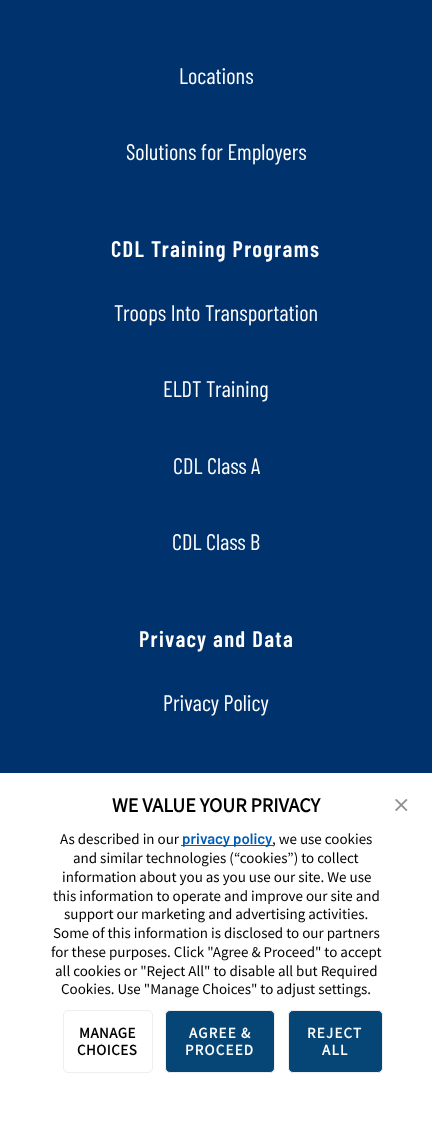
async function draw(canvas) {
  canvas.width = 432;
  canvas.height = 1124;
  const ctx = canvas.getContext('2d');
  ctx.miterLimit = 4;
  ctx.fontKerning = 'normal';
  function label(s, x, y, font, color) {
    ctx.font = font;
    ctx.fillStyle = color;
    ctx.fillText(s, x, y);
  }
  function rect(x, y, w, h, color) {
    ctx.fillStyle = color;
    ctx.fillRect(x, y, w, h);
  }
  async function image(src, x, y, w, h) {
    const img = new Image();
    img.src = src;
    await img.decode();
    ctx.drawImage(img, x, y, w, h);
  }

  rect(0, 0, 432, 1124, '#00326d');
  label('Locations', 179, 84, '22.5px Barlow Condensed', '#fff');
  label('Solutions for Employers', 126, 160, '22.5px Barlow Condensed', '#fff');
  ctx.letterSpacing = '1.3px';
  label('CDL Training Programs', 111, 257, '600 22.5px Barlow Condensed', '#fff');
  ctx.letterSpacing = '0px';
  label('Troops Into Transportation', 114, 321, '22.5px Barlow Condensed', '#fff');
  label('ELDT Training', 163, 397, '22.5px Barlow Condensed', '#fff');
  label('CDL Class A', 173, 474, '22.5px Barlow Condensed', '#fff');
  label('CDL Class B', 172, 550, '22.5px Barlow Condensed', '#fff');
  ctx.letterSpacing = '1.3px';
  label('Privacy and Data', 139, 647, '600 22.5px Barlow Condensed', '#fff');
  ctx.letterSpacing = '0px';
  label('Privacy Policy', 163, 711, '22.5px Barlow Condensed', '#fff');
  rect(0, 773, 432, 351, '#fff');
  label('WE VALUE YOUR PRIVACY', 112, 812, 'bold 20px Source Sans Pro', '#000');
  label('As described in our', 60, 844, '15px Source Sans Pro', '#000');
  rect(181, 845, 92, 1, '#005db6');
  label('privacy policy', 182, 844, '600 15px Barlow', '#005db6');
  label(', we use cookies', 272, 844, '15px Source Sans Pro', '#000');
  label('and similar technologies (“cookies”) to collect', 73, 863, '15px Source Sans Pro', '#000');
  label('information about you as you use our site. We use', 62, 882, '15px Source Sans Pro', '#000');
  label('this information to operate and improve our site and', 53, 901, '15px Source Sans Pro', '#000');
  label('support our marketing and advertising activities.', 64, 919, '15px Source Sans Pro', '#000');
  label('Some of this information is disclosed to our partners', 53, 938, '15px Source Sans Pro', '#000');
  label('for these purposes. Click "Agree & Proceed" to accept', 51, 957, '15px Source Sans Pro', '#000');
  label('all cookies or "Reject All" to disable all but Required', 55, 976, '15px Source Sans Pro', '#000');
  label('Cookies. Use "Manage Choices" to adjust settings.', 61, 994, '15px Source Sans Pro', '#000');
  await image('assets/img1.png', 395, 799, 13, 12);
  ctx.beginPath();
  ctx.roundRect(63.5, 1010.5, 89, 62, 4.5);
  ctx.strokeStyle = '#eee';
  ctx.stroke();
  ctx.letterSpacing = '0.5px';
  label('MANAGE', 79, 1038, 'bold 15px Source Sans Pro', '#000');
  label('CHOICES', 77, 1055, 'bold 15px Source Sans Pro', '#000');
  ctx.fillStyle = '#064676';
  ctx.beginPath();
  ctx.roundRect(165.5, 1010.5, 109, 62, 4.5);
  ctx.fill();
  ctx.stroke();
  ctx.letterSpacing = '1.25px';
  label('AGREE &', 189, 1038, 'bold 15px Source Sans Pro', '#fff');
  label('PROCEED', 185, 1055, 'bold 15px Source Sans Pro', '#fff');
  ctx.fillStyle = '#064676';
  ctx.beginPath();
  ctx.roundRect(288.5, 1010.5, 94, 62, 4.5);
  ctx.fill();
  ctx.stroke();
  label('REJECT', 307, 1038, 'bold 15px Source Sans Pro', '#fff');
  label('ALL', 322, 1055, 'bold 15px Source Sans Pro', '#fff');
}

draw(document.querySelector('canvas'));
